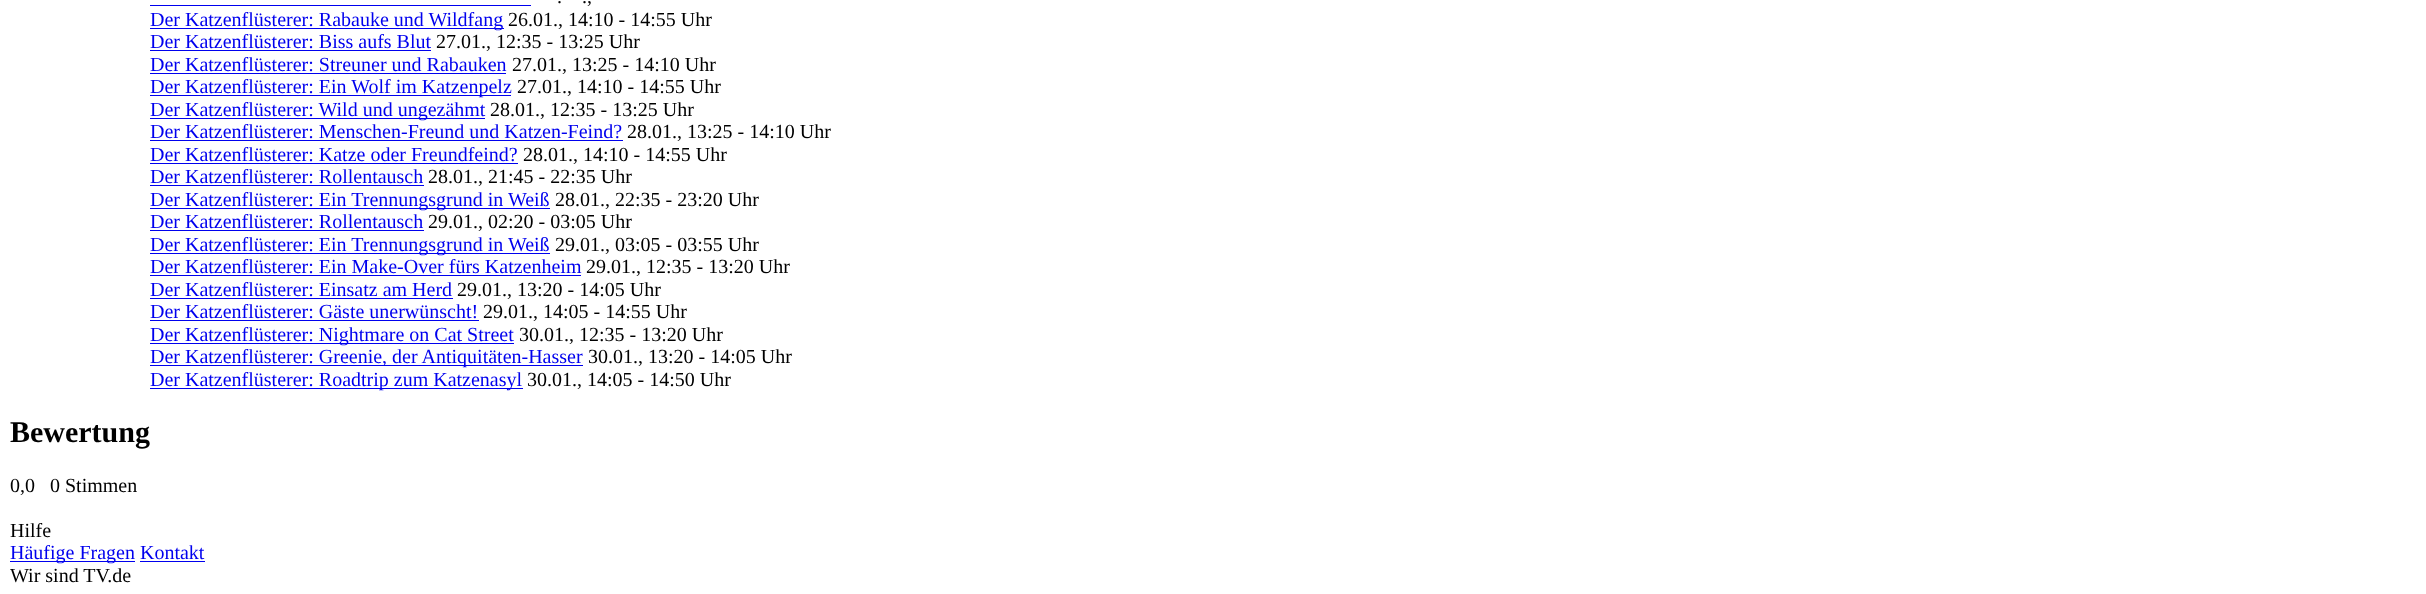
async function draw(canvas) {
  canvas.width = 2426;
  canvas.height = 594;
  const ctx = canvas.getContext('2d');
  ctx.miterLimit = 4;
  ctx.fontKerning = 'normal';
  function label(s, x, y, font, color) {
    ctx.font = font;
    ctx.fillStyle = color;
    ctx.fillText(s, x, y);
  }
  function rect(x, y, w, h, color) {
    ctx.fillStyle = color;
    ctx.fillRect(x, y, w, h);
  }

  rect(0, 0, 2426, 594, '#fff');
  rect(150, 5, 381, 1, '#00e');
  label('.', 557, 3, '20px Liberation Serif', '#000');
  label('.,', 582, 3, '20px Liberation Serif', '#000');
  rect(150, 28, 354, 1, '#00e');
  label('Der Katzenflüsterer: Rabauke und Wildfang', 150, 26, '20px Liberation Serif', '#00e');
  label('26.01., 14:10 - 14:55 Uhr', 508, 26, '20px Liberation Serif', '#000');
  label('Der Katzenflüsterer: Biss aufs Blut', 150, 48, '20px Liberation Serif', '#00e');
  rect(150, 50, 281, 1, '#00e');
  label('27.01., 12:35 - 13:25 Uhr', 436, 48, '20px Liberation Serif', '#000');
  label('Der Katzenflüsterer: Streuner und Rabauken', 150, 71, '20px Liberation Serif', '#00e');
  rect(150, 73, 356, 1, '#00e');
  label('27.01., 13:25 - 14:10 Uhr', 512, 71, '20px Liberation Serif', '#000');
  rect(150, 95, 361, 1, '#00e');
  label('Der Katzenflüsterer: Ein Wolf im Katzenpelz', 150, 93, '20px Liberation Serif', '#00e');
  label('27.01., 14:10 - 14:55 Uhr', 517, 93, '20px Liberation Serif', '#000');
  rect(150, 118, 335, 1, '#00e');
  label('Der Katzenflüsterer: Wild und ungezähmt', 150, 116, '20px Liberation Serif', '#00e');
  label('28.01., 12:35 - 13:25 Uhr', 490, 116, '20px Liberation Serif', '#000');
  label('Der Katzenflüsterer: Menschen-Freund und Katzen-Feind?', 150, 138, '20px Liberation Serif', '#00e');
  rect(150, 140, 473, 1, '#00e');
  label('28.01., 13:25 - 14:10 Uhr', 627, 138, '20px Liberation Serif', '#000');
  label('Der Katzenflüsterer: Katze oder Freundfeind?', 150, 161, '20px Liberation Serif', '#00e');
  rect(150, 163, 368, 1, '#00e');
  label('28.01., 14:10 - 14:55 Uhr', 523, 161, '20px Liberation Serif', '#000');
  label('Der Katzenflüsterer: Rollentausch', 150, 183, '20px Liberation Serif', '#00e');
  rect(150, 185, 274, 1, '#00e');
  label('28.01., 21:45 - 22:35 Uhr', 428, 183, '20px Liberation Serif', '#000');
  rect(150, 208, 400, 1, '#00e');
  label('Der Katzenflüsterer: Ein Trennungsgrund in Weiß', 150, 206, '20px Liberation Serif', '#00e');
  label('28.01., 22:35 - 23:20 Uhr', 555, 206, '20px Liberation Serif', '#000');
  label('Der Katzenflüsterer: Rollentausch', 150, 228, '20px Liberation Serif', '#00e');
  rect(150, 230, 274, 1, '#00e');
  label('29.01., 02:20 - 03:05 Uhr', 428, 228, '20px Liberation Serif', '#000');
  rect(150, 253, 400, 1, '#00e');
  label('Der Katzenflüsterer: Ein Trennungsgrund in Weiß', 150, 251, '20px Liberation Serif', '#00e');
  label('29.01., 03:05 - 03:55 Uhr', 555, 251, '20px Liberation Serif', '#000');
  label('Der Katzenflüsterer: Ein Make-Over fürs Katzenheim', 150, 273, '20px Liberation Serif', '#00e');
  rect(150, 275, 431, 1, '#00e');
  label('29.01., 12:35 - 13:20 Uhr', 586, 273, '20px Liberation Serif', '#000');
  label('Der Katzenflüsterer: Einsatz am Herd', 150, 296, '20px Liberation Serif', '#00e');
  rect(150, 298, 303, 1, '#00e');
  label('29.01., 13:20 - 14:05 Uhr', 457, 296, '20px Liberation Serif', '#000');
  label('Der Katzenflüsterer: Gäste unerwünscht!', 150, 318, '20px Liberation Serif', '#00e');
  rect(150, 320, 329, 1, '#00e');
  label('29.01., 14:05 - 14:55 Uhr', 483, 318, '20px Liberation Serif', '#000');
  rect(150, 343, 364, 1, '#00e');
  label('Der Katzenflüsterer: Nightmare on Cat Street', 150, 341, '20px Liberation Serif', '#00e');
  label('30.01., 12:35 - 13:20 Uhr', 519, 341, '20px Liberation Serif', '#000');
  rect(150, 365, 433, 1, '#00e');
  label('Der Katzenflüsterer: Greenie, der Antiquitäten-Hasser', 150, 363, '20px Liberation Serif', '#00e');
  label('30.01., 13:20 - 14:05 Uhr', 588, 363, '20px Liberation Serif', '#000');
  rect(150, 388, 373, 1, '#00e');
  label('Der Katzenflüsterer: Roadtrip zum Katzenasyl', 150, 386, '20px Liberation Serif', '#00e');
  label('30.01., 14:05 - 14:50 Uhr', 527, 386, '20px Liberation Serif', '#000');
  label('Bewertung', 10, 442, 'bold 30px Liberation Serif', '#000');
  label('0,0', 10, 492, '20px Liberation Serif', '#000');
  label('0 Stimmen', 50, 492, '20px Liberation Serif', '#000');
  label('Hilfe', 10, 537, '20px Liberation Serif', '#000');
  rect(10, 561, 125, 1, '#00e');
  label('Häufige Fragen Kontakt', 10, 559, '20px Liberation Serif', '#00e');
  rect(140, 561, 65, 1, '#00e');
  label('Wir sind TV.de', 10, 582, '20px Liberation Serif', '#000');
}

draw(document.querySelector('canvas'));
